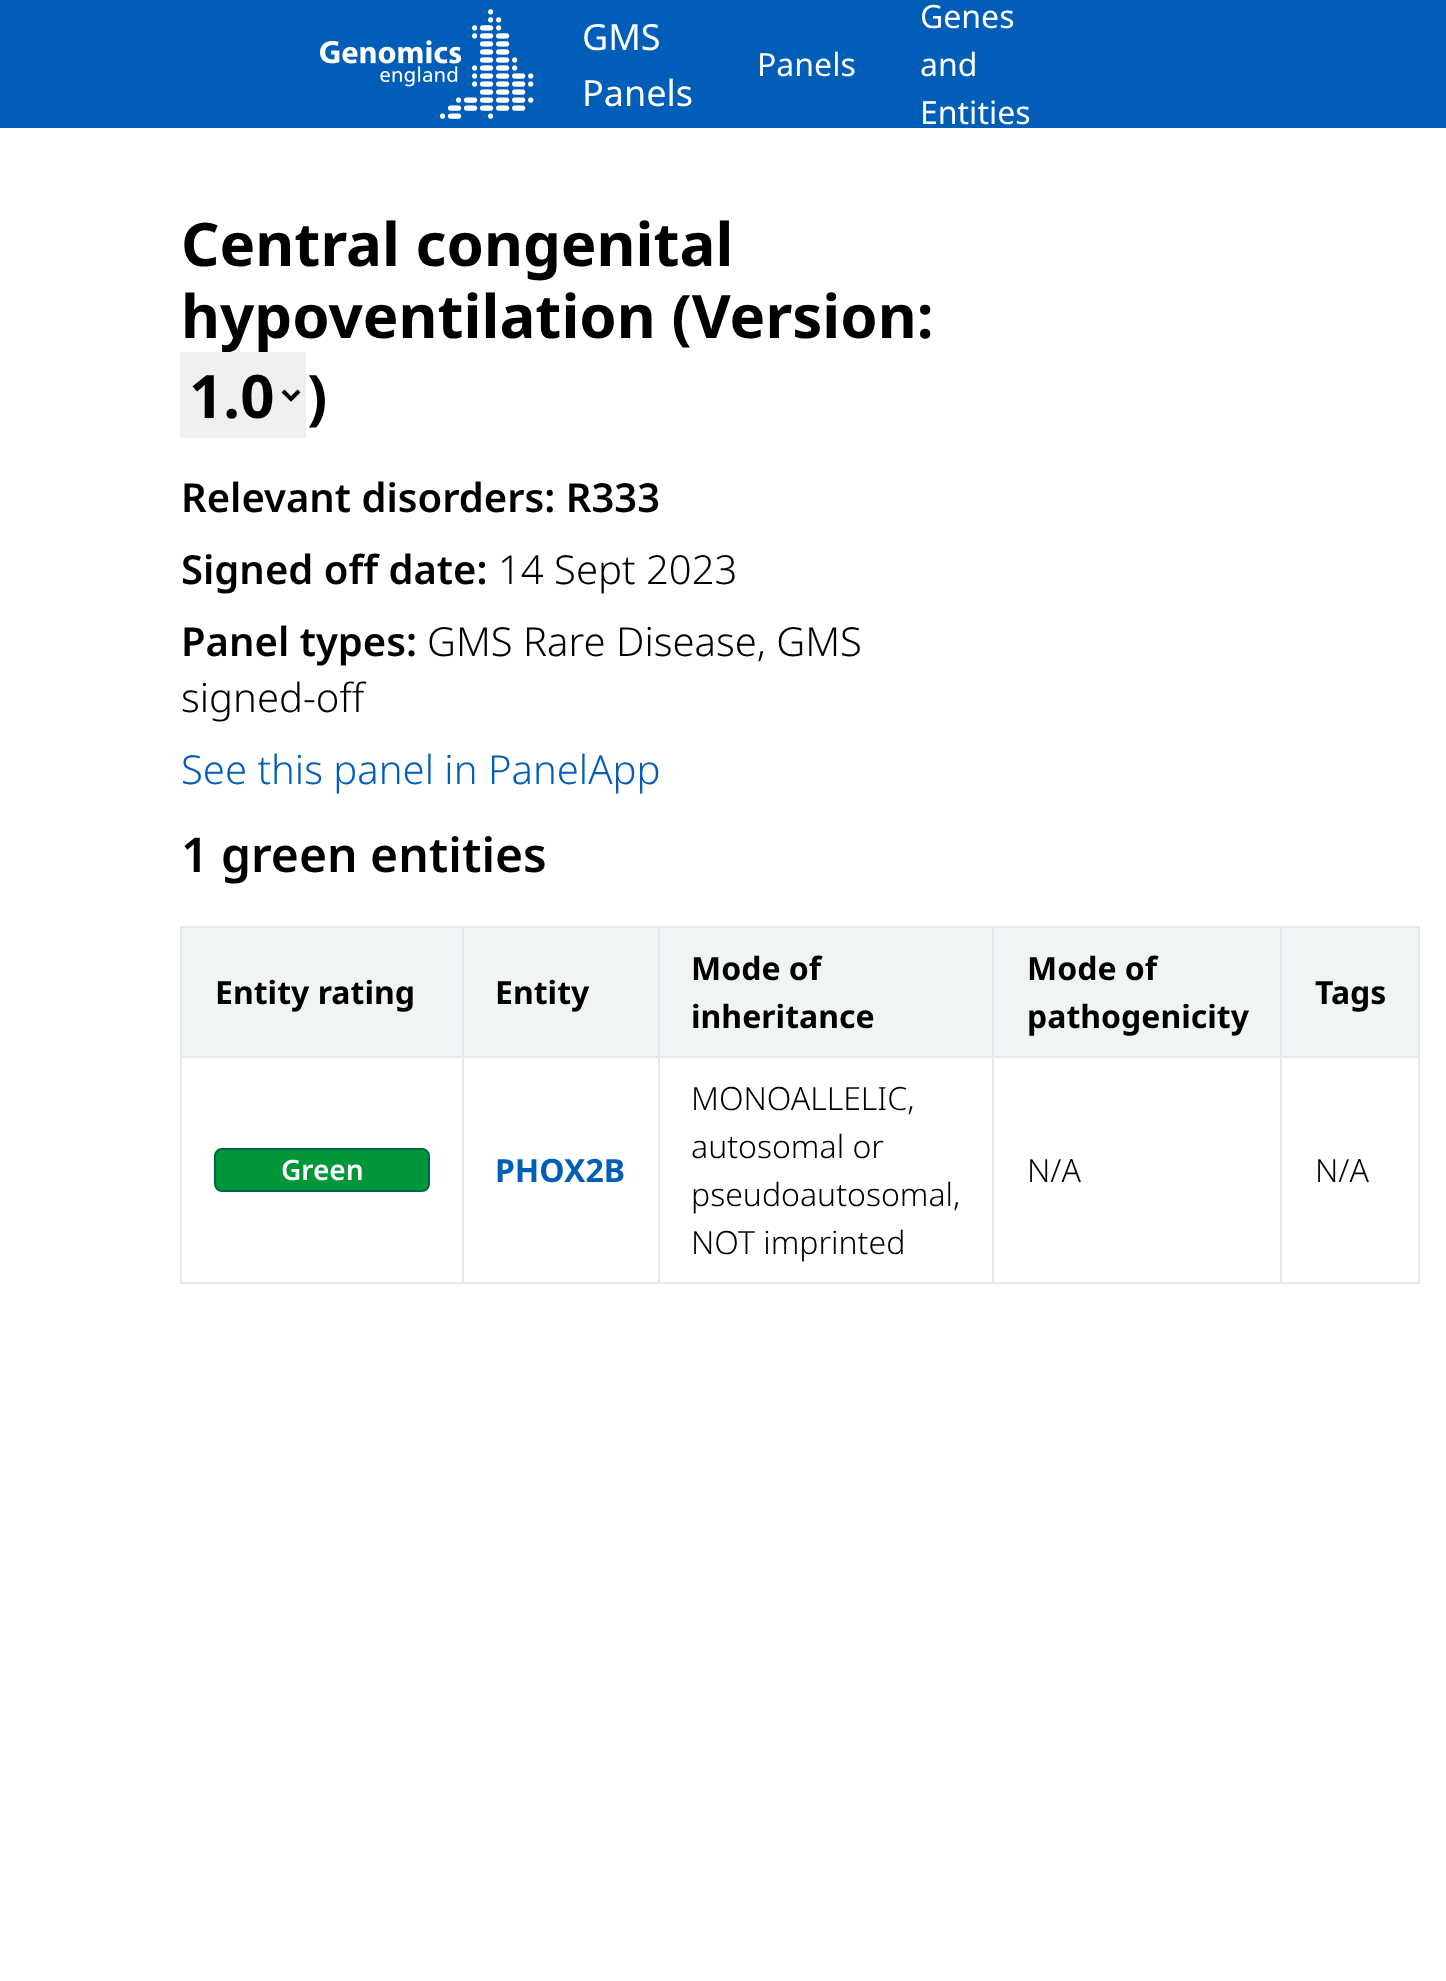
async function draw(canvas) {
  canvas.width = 1446;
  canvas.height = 1981;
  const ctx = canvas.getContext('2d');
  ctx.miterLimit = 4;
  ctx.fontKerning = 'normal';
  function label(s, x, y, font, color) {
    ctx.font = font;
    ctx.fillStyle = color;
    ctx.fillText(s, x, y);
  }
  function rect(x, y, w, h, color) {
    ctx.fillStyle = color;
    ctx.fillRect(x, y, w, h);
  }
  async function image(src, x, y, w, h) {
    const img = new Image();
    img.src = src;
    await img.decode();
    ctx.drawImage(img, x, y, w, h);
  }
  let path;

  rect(0, 0, 1446, 1981, '#fff');
  rect(0, 0, 1446, 128, '#005eb8');
  await image('assets/img1.png', 320, 9, 214, 110);
  label('GMS', 582, 50, '36px Noto Sans', '#fff');
  label('Panels', 582, 106, '36px Noto Sans', '#fff');
  label('Panels', 757, 76, '32px Noto Sans', '#fff');
  label('Genes', 920, 28, '32px Noto Sans', '#fff');
  label('and', 920, 76, '32px Noto Sans', '#fff');
  label('Entities', 920, 124, '32px Noto Sans', '#fff');
  label('Central congenital', 181, 266, 'bold 60px Noto Sans', '#000');
  label('hypoventilation (Version:', 181, 338, 'bold 60px Noto Sans', '#000');
  rect(180, 352, 126, 86, '#efefef');
  path = new Path2D('M283 391L291 399L299 391');
  ctx.strokeStyle = '#000';
  ctx.lineWidth = 4;
  ctx.stroke(path);
  label('1.0', 189, 418, 'bold 60px Noto Sans', '#000');
  label(')', 307, 418, 'bold 60px Noto Sans', '#000');
  label('Relevant disorders: R333', 181, 512, '600 40px Noto Sans', '#000');
  label('Signed off date:', 181, 584, '600 40px Noto Sans', '#000');
  label('14 Sept 2023', 498, 584, '300 40px Noto Sans', '#000');
  label('Panel types:', 181, 656, '600 40px Noto Sans', '#000');
  label('GMS Rare Disease, GMS', 427, 656, '300 40px Noto Sans', '#000');
  label('signed-off', 181, 712, '300 40px Noto Sans', '#000');
  label('See this panel in PanelApp', 181, 784, '300 40px Noto Sans', '#005eb8');
  label('1 green entities', 181, 872, '600 48px Noto Sans', '#000');
  rect(182, 928, 1236, 128, '#f0f4f5');
  rect(1280, 926, 140, 2, '#e5e7eb');
  rect(1280, 1056, 140, 2, '#e5e7eb');
  rect(1418, 1056, 2, 228, '#e5e7eb');
  rect(1280, 1282, 140, 2, '#e5e7eb');
  rect(1280, 1056, 2, 228, '#e5e7eb');
  rect(992, 1056, 290, 2, '#e5e7eb');
  rect(1280, 926, 2, 132, '#e5e7eb');
  rect(992, 926, 290, 2, '#e5e7eb');
  rect(992, 1282, 290, 2, '#e5e7eb');
  rect(992, 1056, 2, 228, '#e5e7eb');
  rect(658, 1056, 336, 2, '#e5e7eb');
  rect(992, 926, 2, 132, '#e5e7eb');
  rect(658, 926, 336, 2, '#e5e7eb');
  rect(658, 1282, 336, 2, '#e5e7eb');
  rect(658, 1056, 2, 228, '#e5e7eb');
  rect(462, 1056, 198, 2, '#e5e7eb');
  rect(658, 926, 2, 132, '#e5e7eb');
  rect(462, 926, 198, 2, '#e5e7eb');
  rect(462, 1282, 198, 2, '#e5e7eb');
  rect(462, 1056, 2, 228, '#e5e7eb');
  rect(180, 1056, 284, 2, '#e5e7eb');
  rect(462, 926, 2, 132, '#e5e7eb');
  rect(180, 926, 284, 2, '#e5e7eb');
  rect(180, 1282, 284, 2, '#e5e7eb');
  rect(180, 1056, 2, 228, '#e5e7eb');
  rect(180, 926, 2, 132, '#e5e7eb');
  label('Entity rating', 215, 1004, 'bold 32px Noto Sans', '#000');
  label('Entity', 495, 1004, 'bold 32px Noto Sans', '#000');
  label('Mode of', 691, 980, 'bold 32px Noto Sans', '#000');
  label('inheritance', 691, 1028, 'bold 32px Noto Sans', '#000');
  label('Mode of', 1027, 980, 'bold 32px Noto Sans', '#000');
  label('pathogenicity', 1027, 1028, 'bold 32px Noto Sans', '#000');
  rect(1418, 926, 2, 132, '#e5e7eb');
  label('Tags', 1315, 1004, 'bold 32px Noto Sans', '#000');
  ctx.fillStyle = '#009639';
  ctx.beginPath();
  ctx.roundRect(215, 1149, 214, 42, 7);
  ctx.fill();
  ctx.strokeStyle = '#006747';
  ctx.lineWidth = 2;
  ctx.stroke();
  label('Green', 281, 1180, '600 28px Noto Sans', '#fff');
  label('PHOX2B', 495, 1182, 'bold 32px Noto Sans', '#005eb8');
  label('MONOALLELIC,', 691, 1110, '300 32px Noto Sans', '#000');
  label('autosomal or', 691, 1158, '300 32px Noto Sans', '#000');
  label('pseudoautosomal,', 691, 1206, '300 32px Noto Sans', '#000');
  label('NOT imprinted', 691, 1254, '300 32px Noto Sans', '#000');
  label('N/A', 1027, 1182, '300 32px Noto Sans', '#000');
  label('N/A', 1315, 1182, '300 32px Noto Sans', '#000');
}

draw(document.querySelector('canvas'));
